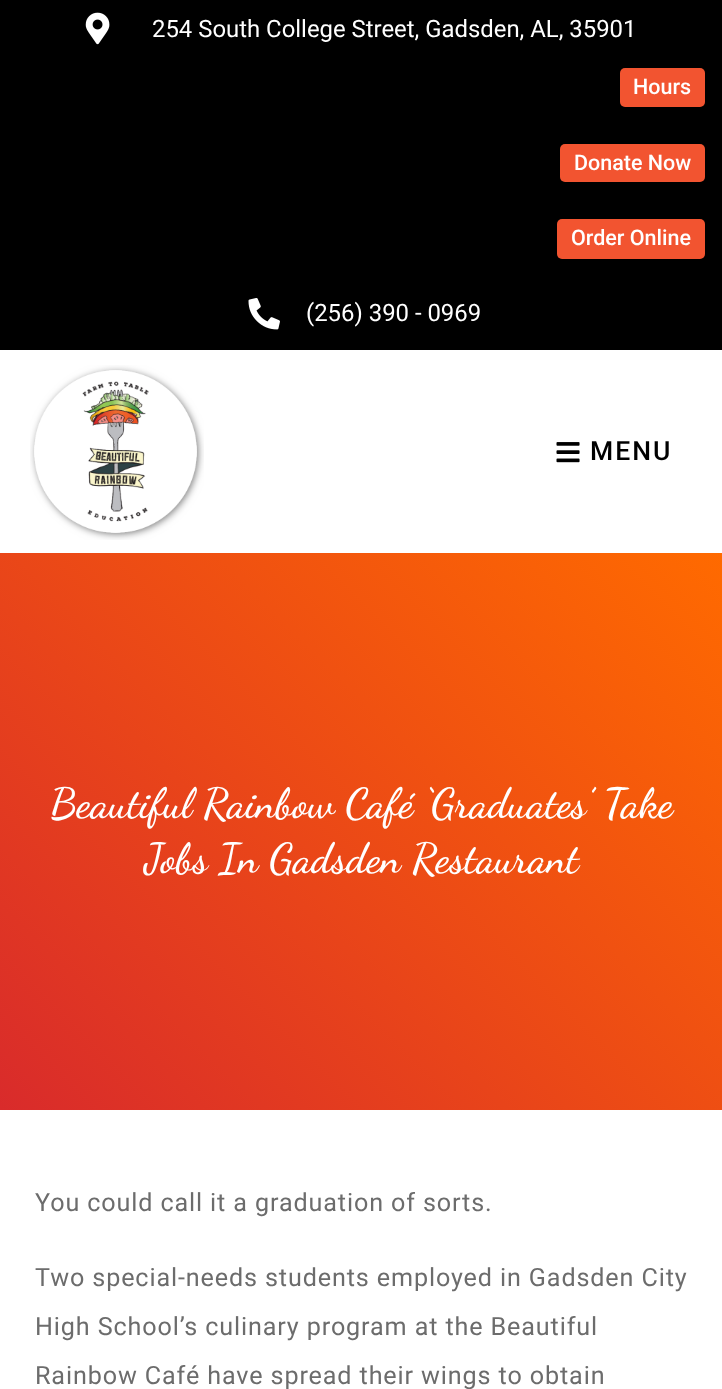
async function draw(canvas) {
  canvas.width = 722;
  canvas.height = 1389;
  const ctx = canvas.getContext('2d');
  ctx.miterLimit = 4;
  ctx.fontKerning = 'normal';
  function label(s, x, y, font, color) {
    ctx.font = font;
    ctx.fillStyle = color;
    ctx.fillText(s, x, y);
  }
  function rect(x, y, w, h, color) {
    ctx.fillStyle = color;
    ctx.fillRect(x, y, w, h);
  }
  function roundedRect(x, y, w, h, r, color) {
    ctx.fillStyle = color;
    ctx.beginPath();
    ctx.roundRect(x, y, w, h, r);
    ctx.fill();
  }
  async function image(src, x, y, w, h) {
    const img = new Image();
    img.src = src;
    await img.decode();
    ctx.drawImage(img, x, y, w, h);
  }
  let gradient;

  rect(0, 0, 722, 1389, '#fff');
  rect(0, 0, 722, 350, '#000');
  await image('assets/img1.png', 85, 12, 25, 33);
  label('254 South College Street, Gadsden, AL, 35901', 152, 37, '23.9px Roboto', '#fff');
  roundedRect(620, 68, 85, 39, 5, '#f25430');
  label('Hours', 633, 94, '500 21.5px Roboto', '#fff');
  roundedRect(560, 144, 145, 38, 5, '#f25430');
  label('Donate Now', 574, 170, '500 21.5px Roboto', '#fff');
  roundedRect(557, 219, 148, 40, 5, '#f25430');
  label('Order Online', 571, 245, '500 21.5px Roboto', '#fff');
  await image('assets/img2.png', 248, 298, 32, 32);
  label('(256) 390 - 0969', 306, 321, '23.9px Roboto', '#fff');
  await image('assets/img3.png', 30, 365, 174, 175);
  await image('assets/img4.png', 556, 442, 24, 21);
  ctx.letterSpacing = '2px';
  label('MENU', 590, 460, '500 26.5px Roboto', '#000');
  gradient = ctx.createLinearGradient(42, 1151, 681, 511);
  gradient.addColorStop(0, '#d92b2b');
  gradient.addColorStop(1, '#ff6a00');
  ctx.fillStyle = gradient;
  ctx.fillRect(0, 553, 722, 557);
  ctx.letterSpacing = '0px';
  label('Beautiful Rainbow Café ‘Graduates’ Take', 50, 817, '600 41.9px Dancing Script', '#fff');
  label('Jobs In Gadsden Restaurant', 144, 872, '600 41.9px Dancing Script', '#fff');
  ctx.letterSpacing = '0.88px';
  label('You could call it a graduation of sorts.', 35, 1211, '25.15px Roboto', '#6c6c6c');
  label('Two special-needs students employed in Gadsden City', 35, 1286, '25.15px Roboto', '#6c6c6c');
  label('High School’s culinary program at the Beautiful', 35, 1335, '25.15px Roboto', '#6c6c6c');
  label('Rainbow Café have spread their wings to obtain', 35, 1384, '25.15px Roboto', '#6c6c6c');
}

draw(document.querySelector('canvas'));
